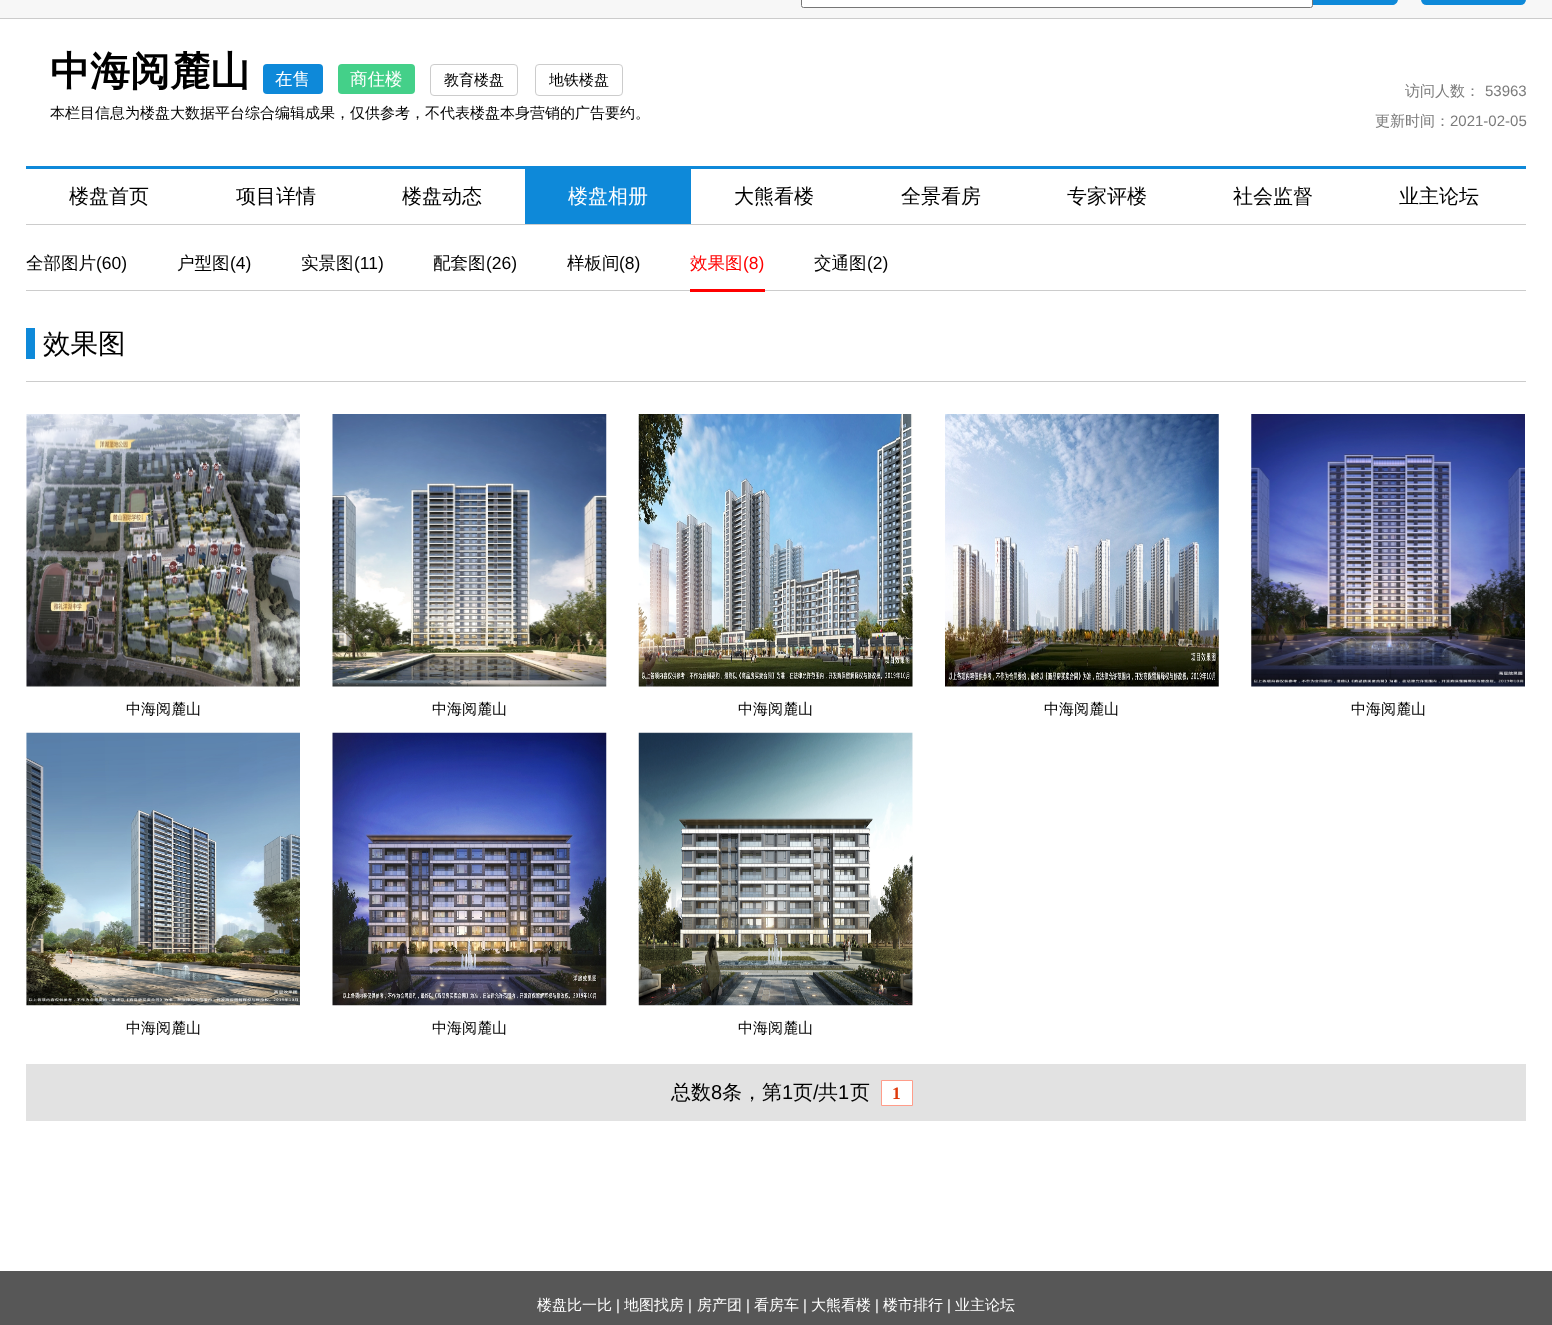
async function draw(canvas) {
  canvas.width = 1552;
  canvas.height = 1325;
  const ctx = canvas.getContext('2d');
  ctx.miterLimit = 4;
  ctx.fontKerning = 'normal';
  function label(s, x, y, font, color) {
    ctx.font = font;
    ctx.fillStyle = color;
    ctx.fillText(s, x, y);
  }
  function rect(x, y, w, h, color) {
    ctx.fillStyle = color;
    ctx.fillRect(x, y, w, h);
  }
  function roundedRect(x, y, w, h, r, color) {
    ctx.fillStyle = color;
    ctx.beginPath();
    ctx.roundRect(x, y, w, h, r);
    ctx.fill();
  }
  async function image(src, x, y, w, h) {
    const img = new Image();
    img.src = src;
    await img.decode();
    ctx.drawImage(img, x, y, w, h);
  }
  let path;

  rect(0, 0, 1552, 1325, '#fff');
  rect(0, 0, 1552, 18, '#f7f7f7');
  rect(0, 18, 1552, 1, '#ccc');
  ctx.fillStyle = '#fff';
  ctx.beginPath();
  ctx.roundRect(801.5, -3.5, 511, 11, 2);
  ctx.fill();
  ctx.strokeStyle = '#767676';
  ctx.stroke();
  ctx.fillStyle = '#0e89d9';
  path = new Path2D('M1313-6H1392C1395.5-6 1398-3.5 1398 0V-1C1398 2.5 1395.5 5 1392 5H1313Z');
  ctx.fill(path);
  roundedRect(1421, -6, 105, 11, 6, '#0e89d9');
  label('中海阅麓山', 50, 85, 'bold 40px WenQuanYi Zen Hei', '#000');
  roundedRect(263, 64, 60, 30, 4, '#0e89d9');
  label('在售', 275, 85, '500 17.5px WenQuanYi Zen Hei', '#fff');
  roundedRect(338, 64, 77, 30, 4, '#44d089');
  label('商住楼', 350, 85, '500 17.5px WenQuanYi Zen Hei', '#fff');
  ctx.beginPath();
  ctx.roundRect(430.5, 64.5, 87, 31, 3.5);
  ctx.strokeStyle = '#ccc';
  ctx.stroke();
  label('教育楼盘', 444, 85, '500 15px WenQuanYi Zen Hei', '#000');
  ctx.beginPath();
  ctx.roundRect(535.5, 64.5, 87, 31, 3.5);
  ctx.stroke();
  label('地铁楼盘', 549, 85, '500 15px WenQuanYi Zen Hei', '#000');
  label('本栏目信息为楼盘大数据平台综合编辑成果，仅供参考，不代表楼盘本身营销的广告要约。', 50, 118, '500 15px WenQuanYi Zen Hei', '#000');
  label('访问人数：', 1405, 96, '500 15px WenQuanYi Zen Hei', '#7a7a7a');
  label('53963', 1485, 96, '15px Liberation Sans', '#7a7a7a');
  label('更新时间：', 1375, 126, '500 15px WenQuanYi Zen Hei', '#7a7a7a');
  label('2021-02-05', 1450, 126, '15px Liberation Sans', '#7a7a7a');
  rect(26, 166, 1500, 3, '#0e89d9');
  rect(26, 224, 1500, 1, '#ccc');
  label('楼盘首页', 69, 203, '500 20px WenQuanYi Zen Hei', '#000');
  label('项目详情', 236, 203, '500 20px WenQuanYi Zen Hei', '#000');
  label('楼盘动态', 402, 203, '500 20px WenQuanYi Zen Hei', '#000');
  rect(525, 169, 166, 55, '#0e89d9');
  label('楼盘相册', 568, 203, '500 20px WenQuanYi Zen Hei', '#fff');
  label('大熊看楼', 734, 203, '500 20px WenQuanYi Zen Hei', '#000');
  label('全景看房', 901, 203, '500 20px WenQuanYi Zen Hei', '#000');
  label('专家评楼', 1067, 203, '500 20px WenQuanYi Zen Hei', '#000');
  label('社会监督', 1233, 203, '500 20px WenQuanYi Zen Hei', '#000');
  label('业主论坛', 1399, 203, '500 20px WenQuanYi Zen Hei', '#000');
  rect(26, 290, 1500, 1, '#ccc');
  label('全部图片', 26, 269, '500 17.5px WenQuanYi Zen Hei', '#000');
  label('(60)', 96, 269, '17.5px Liberation Sans', '#000');
  label('户型图', 177, 269, '500 17.5px WenQuanYi Zen Hei', '#000');
  label('(4)', 230, 269, '17.5px Liberation Sans', '#000');
  label('实景图', 301, 269, '500 17.5px WenQuanYi Zen Hei', '#000');
  label('(11)', 354, 269, '17.5px Liberation Sans', '#000');
  label('配套图', 433, 269, '500 17.5px WenQuanYi Zen Hei', '#000');
  label('(26)', 486, 269, '17.5px Liberation Sans', '#000');
  label('样板间', 567, 269, '500 17.5px WenQuanYi Zen Hei', '#000');
  label('(8)', 619, 269, '17.5px Liberation Sans', '#000');
  rect(690, 289, 75, 3, '#f00');
  label('效果图', 690, 269, '500 17.5px WenQuanYi Zen Hei', '#f00');
  label('(8)', 743, 269, '17.5px Liberation Sans', '#f00');
  label('交通图', 814, 269, '500 17.5px WenQuanYi Zen Hei', '#000');
  label('(2)', 867, 269, '17.5px Liberation Sans', '#000');
  rect(26, 381, 1500, 1, '#ccc');
  rect(26, 328, 9, 31, '#0e89d9');
  label('效果图', 43, 353, '500 27.5px WenQuanYi Zen Hei', '#000');
  await image('assets/img1.png', 26, 414, 274, 273);
  label('中海阅麓山', 126, 714, '500 15px WenQuanYi Zen Hei', '#000');
  await image('assets/img2.png', 332, 414, 275, 273);
  label('中海阅麓山', 432, 714, '500 15px WenQuanYi Zen Hei', '#000');
  await image('assets/img3.png', 638, 414, 275, 273);
  label('中海阅麓山', 738, 714, '500 15px WenQuanYi Zen Hei', '#000');
  await image('assets/img4.png', 945, 414, 274, 273);
  label('中海阅麓山', 1044, 714, '500 15px WenQuanYi Zen Hei', '#000');
  await image('assets/img5.png', 1251, 414, 274, 273);
  label('中海阅麓山', 1351, 714, '500 15px WenQuanYi Zen Hei', '#000');
  await image('assets/img6.png', 26, 732, 274, 274);
  label('中海阅麓山', 126, 1033, '500 15px WenQuanYi Zen Hei', '#000');
  await image('assets/img7.png', 332, 732, 275, 274);
  label('中海阅麓山', 432, 1033, '500 15px WenQuanYi Zen Hei', '#000');
  await image('assets/img8.png', 638, 732, 275, 274);
  label('中海阅麓山', 738, 1033, '500 15px WenQuanYi Zen Hei', '#000');
  rect(26, 1064, 1500, 57, '#e2e2e2');
  label('总数', 671, 1099, '500 20px WenQuanYi Zen Hei', '#000');
  label('8', 711, 1099, '20px Liberation Sans', '#000');
  label('条，第', 722, 1099, '500 20px WenQuanYi Zen Hei', '#000');
  label('1', 782, 1099, '20px Liberation Sans', '#000');
  label('页', 793, 1099, '500 20px WenQuanYi Zen Hei', '#000');
  label('/', 813, 1099, '20px Liberation Sans', '#000');
  label('共', 818, 1099, '500 20px WenQuanYi Zen Hei', '#000');
  label('1', 838, 1099, '20px Liberation Sans', '#000');
  label('页', 850, 1099, '500 20px WenQuanYi Zen Hei', '#000');
  ctx.fillStyle = '#fff';
  ctx.beginPath();
  ctx.rect(881.5, 1080.5, 31, 25);
  ctx.fill();
  ctx.strokeStyle = '#ff9d8a';
  ctx.stroke();
  label('1', 892, 1099, 'bold 17.5px Liberation Serif', '#df3a0b');
  rect(0, 1271, 1552, 54, '#575757');
  label('楼盘比一比', 537, 1310, '500 15px WenQuanYi Zen Hei', '#fff');
  label('|', 616, 1310, '15px Liberation Sans', '#fff');
  label('地图找房', 624, 1310, '500 15px WenQuanYi Zen Hei', '#fff');
  label('|', 688, 1310, '15px Liberation Sans', '#fff');
  label('房产团', 697, 1310, '500 15px WenQuanYi Zen Hei', '#fff');
  label('|', 746, 1310, '15px Liberation Sans', '#fff');
  label('看房车', 754, 1310, '500 15px WenQuanYi Zen Hei', '#fff');
  label('|', 803, 1310, '15px Liberation Sans', '#fff');
  label('大熊看楼', 811, 1310, '500 15px WenQuanYi Zen Hei', '#fff');
  label('|', 875, 1310, '15px Liberation Sans', '#fff');
  label('楼市排行', 883, 1310, '500 15px WenQuanYi Zen Hei', '#fff');
  label('|', 947, 1310, '15px Liberation Sans', '#fff');
  label('业主论坛', 955, 1310, '500 15px WenQuanYi Zen Hei', '#fff');
}

draw(document.querySelector('canvas'));
